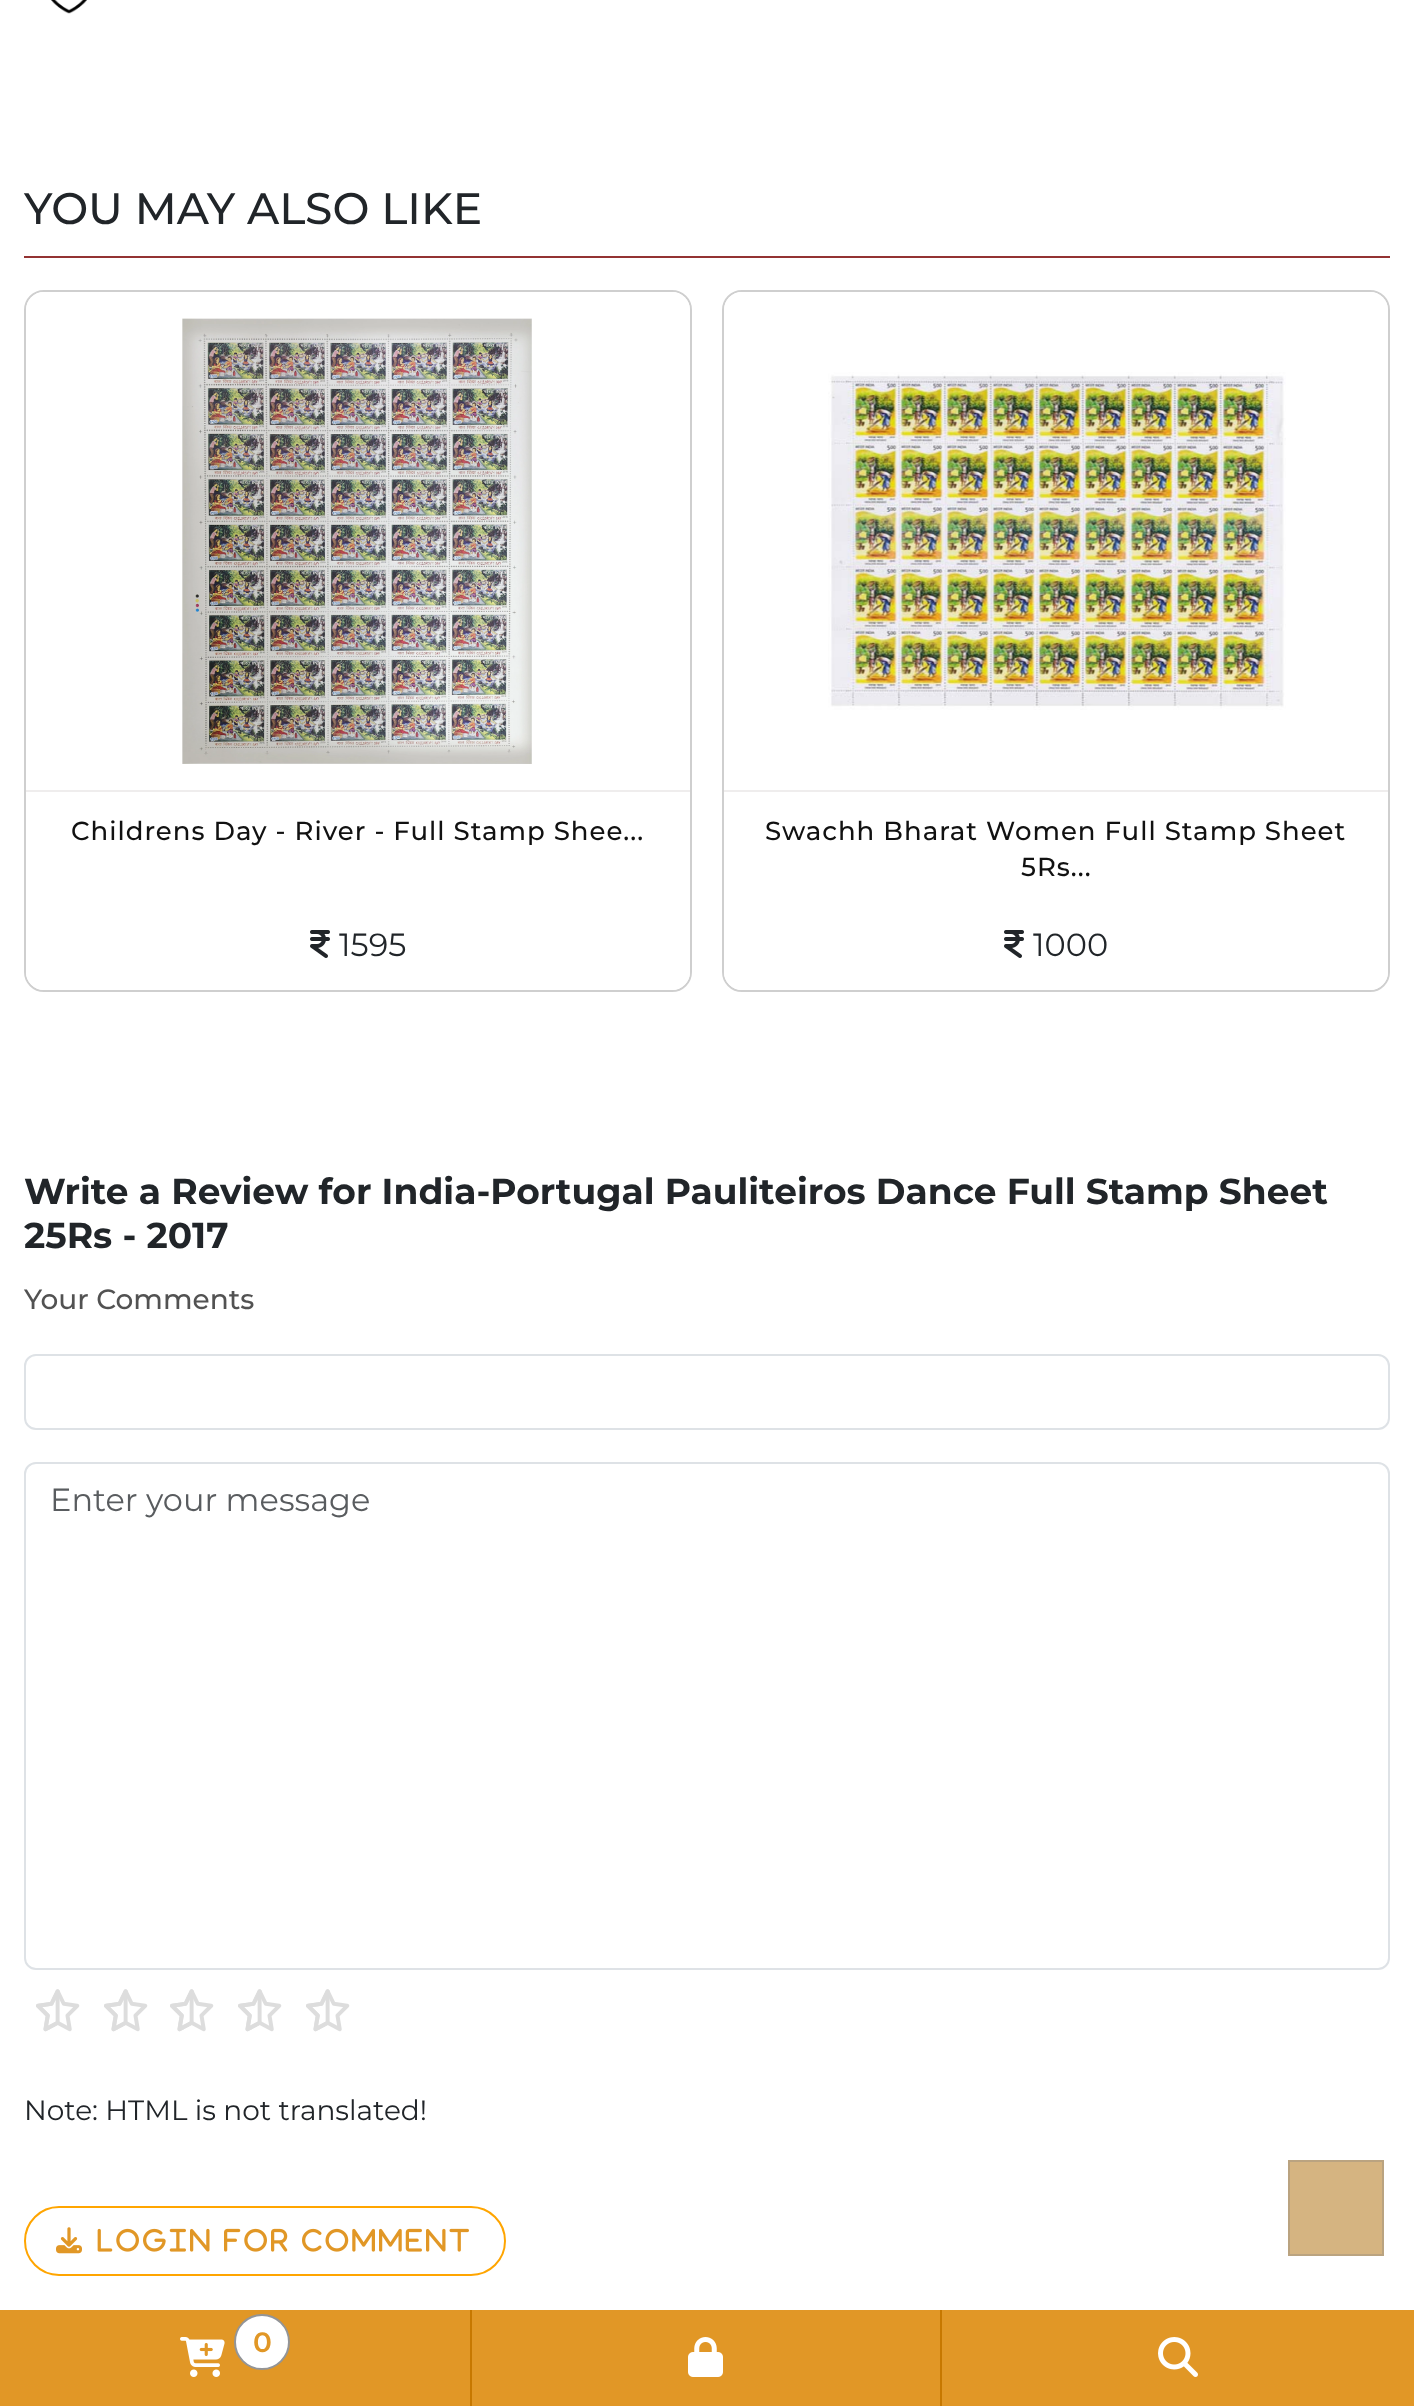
async function draw(canvas) {
  canvas.width = 1414;
  canvas.height = 2406;
  const ctx = canvas.getContext('2d');
  ctx.miterLimit = 4;
  ctx.fontKerning = 'normal';
  function label(s, x, y, font, color) {
    ctx.font = font;
    ctx.fillStyle = color;
    ctx.fillText(s, x, y);
  }
  function rect(x, y, w, h, color) {
    ctx.fillStyle = color;
    ctx.fillRect(x, y, w, h);
  }
  async function image(src, x, y, w, h) {
    const img = new Image();
    img.src = src;
    await img.decode();
    ctx.drawImage(img, x, y, w, h);
  }

  rect(0, 0, 1414, 2406, '#fff');
  await image('assets/img1.png', 51, 0, 36, 14);
  rect(24, 256, 1366, 2, '#933232');
  label('YOU MAY ALSO LIKE', 24, 224, '500 44px Montserrat', '#212529');
  ctx.beginPath();
  ctx.roundRect(25, 291, 666, 700, 19);
  ctx.strokeStyle = '#cfcfcf';
  ctx.lineWidth = 2;
  ctx.stroke();
  ctx.fillStyle = '#fff';
  ctx.beginPath();
  ctx.roundRect(26, 292, 664, 500, [18, 18, 0, 0]);
  ctx.fill();
  rect(26, 790, 664, 2, '#efeded');
  await image('assets/img2.png', 182, 318, 350, 446);
  ctx.fillStyle = '#fff';
  ctx.beginPath();
  ctx.roundRect(26, 792, 664, 198, [0, 0, 18, 18]);
  ctx.fill();
  ctx.letterSpacing = '1px';
  label('Childrens Day - River - Full Stamp Shee...', 71, 840, '500 26px Montserrat', '#111');
  await image('assets/img3.png', 310, 930, 20, 28);
  ctx.letterSpacing = '0px';
  label('1595', 339, 956, '32px Montserrat', '#212529');
  ctx.beginPath();
  ctx.roundRect(723, 291, 666, 700, 19);
  ctx.stroke();
  ctx.fillStyle = '#fff';
  ctx.beginPath();
  ctx.roundRect(724, 292, 664, 500, [18, 18, 0, 0]);
  ctx.fill();
  rect(724, 790, 664, 2, '#efeded');
  await image('assets/img4.png', 828, 372, 458, 338);
  ctx.fillStyle = '#fff';
  ctx.beginPath();
  ctx.roundRect(724, 792, 664, 198, [0, 0, 18, 18]);
  ctx.fill();
  ctx.letterSpacing = '1px';
  label('Swachh Bharat Women Full Stamp Sheet', 765, 840, '500 26px Montserrat', '#111');
  label('5Rs...', 1021, 876, '500 26px Montserrat', '#111');
  await image('assets/img3.png', 1004, 930, 20, 28);
  ctx.letterSpacing = '0px';
  label('1000', 1033, 956, '32px Montserrat', '#212529');
  label('Write a Review for India-Portugal Pauliteiros Dance Full Stamp Sheet', 24, 1204, 'bold 36px Montserrat', '#212529');
  label('25Rs - 2017', 24, 1248, 'bold 36px Montserrat', '#212529');
  label('Your Comments', 24, 1309, '500 28px Montserrat', '#525252');
  ctx.beginPath();
  ctx.roundRect(25, 1355, 1364, 74, 11);
  ctx.strokeStyle = '#dee2e6';
  ctx.stroke();
  ctx.beginPath();
  ctx.roundRect(25, 1463, 1364, 506, 11);
  ctx.stroke();
  label('Enter your message', 50, 1511, '32px Montserrat', '#595c5f');
  await image('assets/img5.png', 36, 1989, 44, 43);
  await image('assets/img6.png', 36, 1989, 24, 43);
  await image('assets/img5.png', 104, 1989, 44, 43);
  await image('assets/img6.png', 104, 1989, 24, 43);
  await image('assets/img5.png', 170, 1989, 44, 43);
  await image('assets/img6.png', 170, 1989, 24, 43);
  await image('assets/img5.png', 238, 1989, 44, 43);
  await image('assets/img6.png', 238, 1989, 24, 43);
  await image('assets/img5.png', 306, 1989, 44, 43);
  await image('assets/img6.png', 306, 1989, 24, 43);
  label('Note: HTML is not translated!', 24, 2120, '28px Montserrat', '#212529');
  ctx.beginPath();
  ctx.roundRect(25, 2207, 480, 68, 34);
  ctx.strokeStyle = '#ffa500';
  ctx.stroke();
  await image('assets/img7.png', 56, 2227, 26, 27);
  await image('assets/img8.png', 97, 2228, 113, 24);
  await image('assets/img9.png', 224, 2228, 64, 24);
  await image('assets/img10.png', 302, 2228, 167, 24);
  ctx.fillStyle = '#d5b481';
  ctx.beginPath();
  ctx.rect(1289, 2161, 94, 94);
  ctx.fill();
  ctx.strokeStyle = '#baa380';
  ctx.stroke();
  rect(0, 2310, 470, 96, '#e19726');
  rect(470, 2310, 2, 96, '#c77800');
  await image('assets/img11.png', 180, 2337, 45, 40);
  ctx.fillStyle = '#fff';
  ctx.beginPath();
  ctx.arc(262, 2342, 27, 0, 2 * Math.PI);
  ctx.fill();
  ctx.strokeStyle = '#939598';
  ctx.stroke();
  label('0', 253, 2352, '600 28px Montserrat', '#e19726');
  rect(472, 2310, 468, 96, '#e19726');
  rect(940, 2310, 2, 96, '#c77800');
  await image('assets/img12.png', 688, 2337, 35, 40);
  rect(942, 2310, 472, 96, '#e19726');
  await image('assets/img13.png', 1158, 2337, 40, 40);
}

draw(document.querySelector('canvas'));
